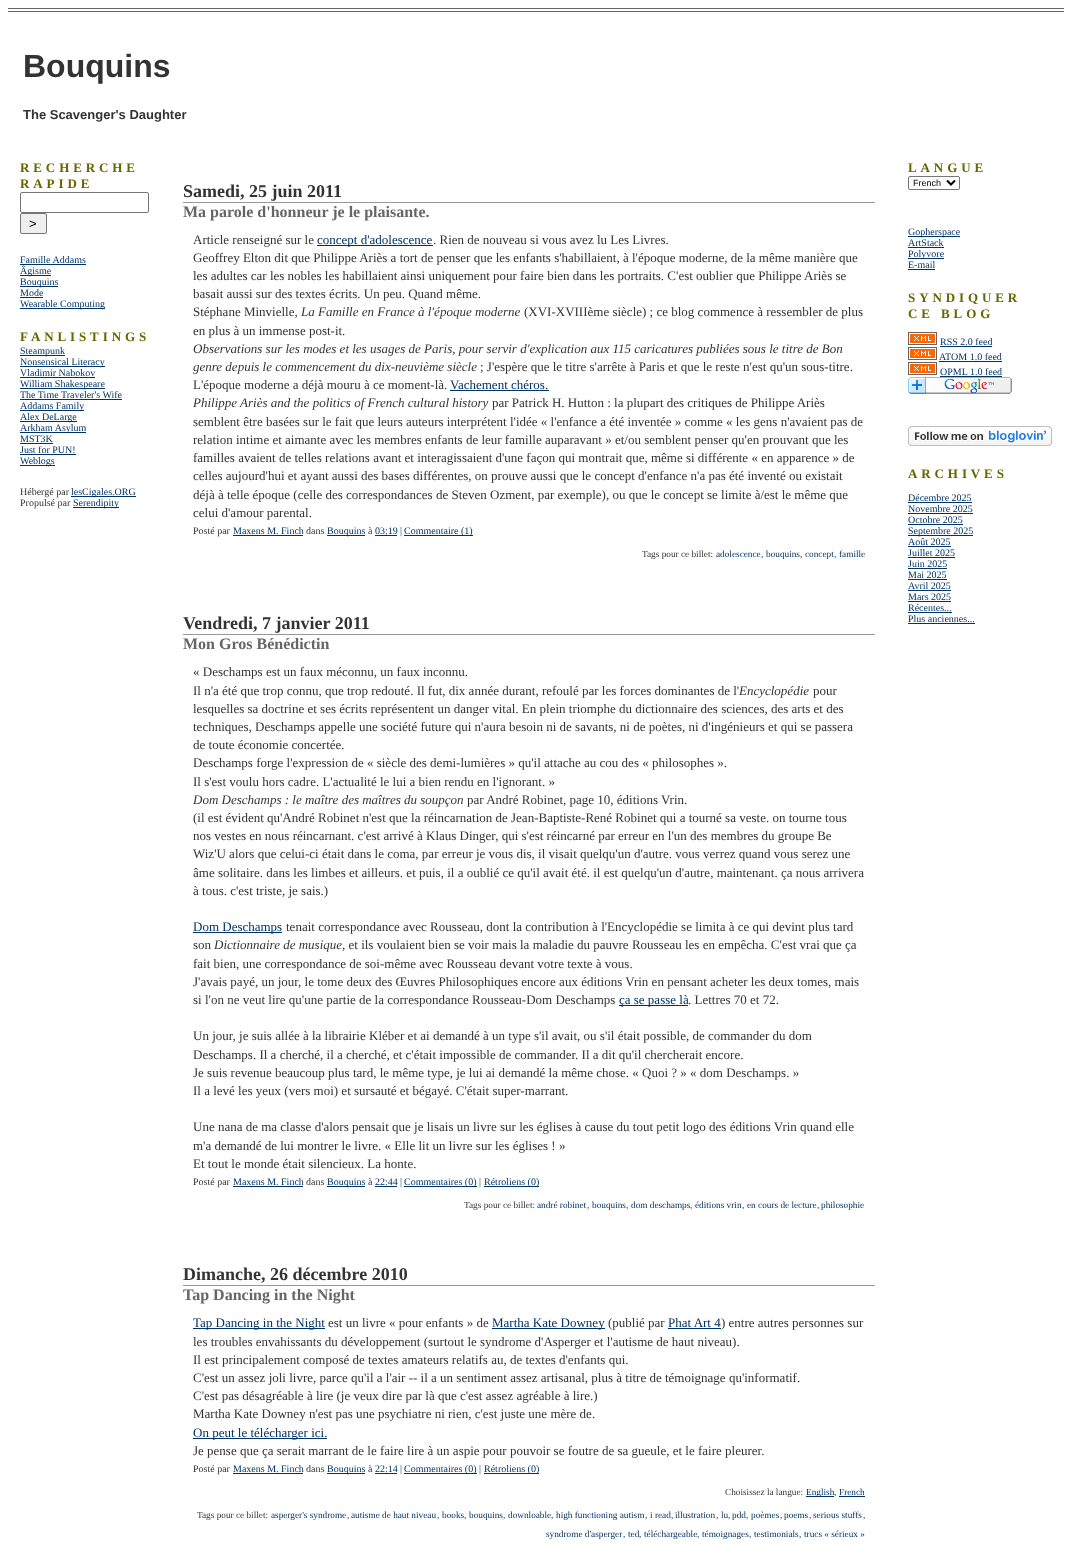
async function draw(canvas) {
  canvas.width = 1072;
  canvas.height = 1564;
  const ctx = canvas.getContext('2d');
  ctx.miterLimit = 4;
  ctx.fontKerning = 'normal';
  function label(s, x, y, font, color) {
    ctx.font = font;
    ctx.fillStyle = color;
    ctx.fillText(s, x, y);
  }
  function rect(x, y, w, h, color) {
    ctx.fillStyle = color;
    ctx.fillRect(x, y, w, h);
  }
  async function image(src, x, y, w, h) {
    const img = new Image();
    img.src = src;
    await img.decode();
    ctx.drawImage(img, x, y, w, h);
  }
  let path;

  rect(0, 0, 1072, 1564, '#fff');
  rect(8, 8, 1056, 1, '#666');
  rect(8, 11, 1056, 1, '#666');
  label('Bouquins', 23, 77, 'bold 32px Liberation Sans', '#333');
  label('The Scavenger\'s Daughter', 23, 119, 'bold 13px Liberation Sans', '#333');
  ctx.letterSpacing = '3.9px';
  label('RECHERCHE', 20, 172, 'bold 13px Liberation Serif', '#660');
  label('RAPIDE', 20, 188, 'bold 13px Liberation Serif', '#660');
  ctx.beginPath();
  ctx.roundRect(20.5, 192.5, 128, 20, 1.5);
  ctx.strokeStyle = '#767676';
  ctx.stroke();
  ctx.fillStyle = '#efefef';
  ctx.beginPath();
  ctx.roundRect(20.5, 213.5, 26, 20, 1.5);
  ctx.fill();
  ctx.stroke();
  ctx.letterSpacing = '0px';
  label('>', 29, 228, '13px Liberation Sans', '#000');
  label('Famille Addams', 20, 263, '10px Liberation Serif', '#036');
  rect(20, 264, 66, 1, '#036');
  rect(20, 275, 31, 1, '#036');
  label('Âgisme', 20, 274, '10px Liberation Serif', '#036');
  rect(20, 286, 38, 1, '#036');
  label('Bouquins', 20, 285, '10px Liberation Serif', '#036');
  label('Mode', 20, 296, '10px Liberation Serif', '#036');
  rect(20, 297, 23, 1, '#036');
  rect(20, 308, 85, 1, '#036');
  label('Wearable Computing', 20, 307, '10px Liberation Serif', '#036');
  ctx.letterSpacing = '3.9px';
  label('FANLISTINGS', 20, 341, 'bold 13px Liberation Serif', '#660');
  rect(20, 355, 45, 1, '#036');
  ctx.letterSpacing = '0px';
  label('Steampunk', 20, 354, '10px Liberation Serif', '#036');
  rect(20, 366, 85, 1, '#036');
  label('Nonsensical Literacy', 20, 365, '10px Liberation Serif', '#036');
  label('Vladimir Nabokov', 20, 376, '10px Liberation Serif', '#036');
  rect(20, 377, 75, 1, '#036');
  rect(20, 388, 85, 1, '#036');
  label('William Shakespeare', 20, 387, '10px Liberation Serif', '#036');
  label('The Time Traveler\'s Wife', 20, 398, '10px Liberation Serif', '#036');
  rect(20, 399, 102, 1, '#036');
  rect(20, 410, 64, 1, '#036');
  label('Addams Family', 20, 409, '10px Liberation Serif', '#036');
  rect(20, 421, 57, 1, '#036');
  label('Alex DeLarge', 20, 420, '10px Liberation Serif', '#036');
  rect(20, 432, 66, 1, '#036');
  label('Arkham Asylum', 20, 431, '10px Liberation Serif', '#036');
  label('MST3K', 20, 442, '10px Liberation Serif', '#036');
  rect(20, 443, 33, 1, '#036');
  label('Just for PUN!', 20, 453, '10px Liberation Serif', '#036');
  rect(20, 454, 56, 1, '#036');
  rect(20, 465, 35, 1, '#036');
  label('Weblogs', 20, 464, '10px Liberation Serif', '#036');
  label('Hébergé par', 20, 495, '10px Liberation Serif', '#333');
  rect(71, 496, 65, 1, '#036');
  label('lesCigales.ORG', 71, 495, '10px Liberation Serif', '#036');
  label('Propulsé par', 20, 506, '10px Liberation Serif', '#333');
  rect(73, 507, 46, 1, '#036');
  label('Serendipity', 73, 506, '10px Liberation Serif', '#036');
  rect(183, 202, 692, 1, '#999');
  label('Samedi, 25 juin 2011', 183, 197, 'bold 18px Liberation Serif', '#333');
  label('Ma parole d\'honneur je le plaisante.', 183, 217, 'bold 16px Liberation Serif', '#666');
  label('Article renseigné sur le', 193, 244, '13px Liberation Serif', '#333');
  rect(317, 245, 116, 1, '#036');
  label('concept d\'adolescence', 317, 244, '13px Liberation Serif', '#036');
  label('. Rien de nouveau si vous avez lu Les Livres.', 433, 244, '13px Liberation Serif', '#333');
  label('Geoffrey Elton dit que Philippe Ariès a tort de penser que les enfants s\'habillaient, à l\'époque moderne, de la même manière que', 193, 262, '13px Liberation Serif', '#333');
  label('les adultes car les nobles les habillaient ainsi uniquement pour faire bien dans les portraits. C\'est oublier que Philippe Ariès se', 193, 280, '13px Liberation Serif', '#333');
  label('basait aussi sur des textes écrits. Un peu. Quand même.', 193, 298, '13px Liberation Serif', '#333');
  label('Stéphane Minvielle,', 193, 316, '13px Liberation Serif', '#333');
  label('La Famille en France à l\'époque moderne', 301, 316, 'italic 13px Liberation Serif', '#333');
  label('(XVI-XVIIIème siècle) ; ce blog commence à ressembler de plus', 524, 316, '13px Liberation Serif', '#333');
  label('en plus à un immense post-it.', 193, 335, '13px Liberation Serif', '#333');
  label('Observations sur les modes et les usages de Paris, pour servir d\'explication aux 115 caricatures publiées sous le titre de Bon', 193, 353, 'italic 13px Liberation Serif', '#333');
  label('genre depuis le commencement du dix-neuvième siècle', 193, 371, 'italic 13px Liberation Serif', '#333');
  label('; J\'espère que le titre s\'arrête à Paris et que le reste n\'est qu\'un sous-titre.', 480, 371, '13px Liberation Serif', '#333');
  label('L\'époque moderne a déjà mouru à ce moment-là.', 193, 389, '13px Liberation Serif', '#333');
  label('Vachement chéros.', 450, 389, '13px Liberation Serif', '#036');
  rect(450, 390, 99, 1, '#036');
  label('Philippe Ariès and the politics of French cultural history', 193, 407, 'italic 13px Liberation Serif', '#333');
  label('par Patrick H. Hutton : la plupart des critiques de Philippe Ariès', 492, 407, '13px Liberation Serif', '#333');
  label('semblent être basées sur le fait que leurs auteurs interprétent l\'idée « l\'enfance a été inventée » comme « les gens n\'avaient pas de', 193, 426, '13px Liberation Serif', '#333');
  label('relation intime et aimante avec les membres enfants de leur famille auparavant » et/ou semblent penser qu\'en prouvant que les', 193, 444, '13px Liberation Serif', '#333');
  label('familles avaient de telles relations avant et interagissaient d\'une façon qui montrait que, même si différente « en apparence » de', 193, 462, '13px Liberation Serif', '#333');
  label('celles aujourd\'hui et ayant aussi des bases différentes, on prouve aussi que le concept d\'enfance n\'a pas été inventé ou existait', 193, 480, '13px Liberation Serif', '#333');
  label('déjà à telle époque (celle des correspondances de Steven Ozment, par exemple), ou que le concept se limite à/est le même que', 193, 499, '13px Liberation Serif', '#333');
  label('celui d\'amour parental.', 193, 517, '13px Liberation Serif', '#333');
  label('Posté par', 193, 534, '10px Liberation Serif', '#333');
  label('Maxens M. Finch', 233, 534, '10px Liberation Serif', '#036');
  rect(233, 535, 70, 1, '#036');
  label('dans', 306, 534, '10px Liberation Serif', '#333');
  rect(327, 535, 38, 1, '#036');
  label('Bouquins', 327, 534, '10px Liberation Serif', '#036');
  label('à', 368, 534, '10px Liberation Serif', '#333');
  label('03:19', 375, 534, '10px Liberation Serif', '#036');
  rect(375, 535, 22, 1, '#036');
  label('|', 400, 534, '10px Liberation Serif', '#333');
  rect(404, 535, 69, 1, '#036');
  label('Commentaire (1)', 404, 534, '10px Liberation Serif', '#036');
  label('Tags pour ce billet:', 642, 557, '9.25px Liberation Serif', '#333');
  label('adolescence', 716, 557, '9.25px Liberation Serif', '#036');
  label(',', 761, 557, '9.25px Liberation Serif', '#333');
  label('bouquins', 766, 557, '9.25px Liberation Serif', '#036');
  label(',', 800, 557, '9.25px Liberation Serif', '#333');
  label('concept', 805, 557, '9.25px Liberation Serif', '#036');
  label(',', 834, 557, '9.25px Liberation Serif', '#333');
  label('famille', 839, 557, '9.25px Liberation Serif', '#036');
  rect(183, 634, 692, 1, '#999');
  label('Vendredi, 7 janvier 2011', 183, 629, 'bold 18px Liberation Serif', '#333');
  label('Mon Gros Bénédictin', 183, 649, 'bold 16px Liberation Serif', '#666');
  label('« Deschamps est un faux méconnu, un faux inconnu.', 193, 676, '13px Liberation Serif', '#333');
  label('Il n\'a été que trop connu, que trop redouté. Il fut, dix année durant, refoulé par les forces dominantes de l\'', 193, 695, '13px Liberation Serif', '#333');
  label('Encyclopédie', 739, 695, 'italic 13px Liberation Serif', '#333');
  label('pour', 813, 695, '13px Liberation Serif', '#333');
  label('lesquelles sa doctrine et ses écrits représentent un danger vital. En plein triomphe du dictionnaire des sciences, des arts et des', 193, 713, '13px Liberation Serif', '#333');
  label('techniques, Deschamps appelle une société future qui n\'aura besoin ni de savants, ni de poètes, ni d\'ingénieurs et qui se passera', 193, 731, '13px Liberation Serif', '#333');
  label('de toute économie concertée.', 193, 749, '13px Liberation Serif', '#333');
  label('Deschamps forge l\'expression de « siècle des demi-lumières » qu\'il attache au cou des « philosophes ».', 193, 767, '13px Liberation Serif', '#333');
  label('Il s\'est voulu hors cadre. L\'actualité le lui a bien rendu en l\'ignorant. »', 193, 786, '13px Liberation Serif', '#333');
  label('Dom Deschamps : le maître des maîtres du soupçon', 193, 804, 'italic 13px Liberation Serif', '#333');
  label('par André Robinet, page 10, éditions Vrin.', 467, 804, '13px Liberation Serif', '#333');
  label('(il est évident qu\'André Robinet n\'est que la réincarnation de Jean-Baptiste-René Robinet qui a tourné sa veste. on tourne tous', 193, 822, '13px Liberation Serif', '#333');
  label('nos vestes en nous réincarnant. c\'est arrivé à Klaus Dinger, qui s\'est réincarné par erreur en l\'un des membres du groupe Be', 193, 840, '13px Liberation Serif', '#333');
  label('Wiz\'U alors que celui-ci était dans le coma, par erreur je vous dis, il visait quelqu\'un d\'autre. vous verrez quand vous serez une', 193, 858, '13px Liberation Serif', '#333');
  label('âme solitaire. dans les limbes et ailleurs. et puis, il a oublié ce qu\'il avait été. il est quelqu\'un d\'autre, maintenant. ça nous arrivera', 193, 877, '13px Liberation Serif', '#333');
  label('à tous. c\'est triste, je sais.)', 193, 895, '13px Liberation Serif', '#333');
  rect(193, 932, 89, 1, '#036');
  label('Dom Deschamps', 193, 931, '13px Liberation Serif', '#036');
  label('tenait correspondance avec Rousseau, dont la contribution à l\'Encyclopédie se limita à ce qui devint plus tard', 286, 931, '13px Liberation Serif', '#333');
  label('son', 193, 949, '13px Liberation Serif', '#333');
  label('Dictionnaire de musique', 214, 949, 'italic 13px Liberation Serif', '#333');
  label(', et ils voulaient bien se voir mais la maladie du pauvre Rousseau les en empêcha. C\'est vrai que ça', 342, 949, '13px Liberation Serif', '#333');
  label('fait bien, une correspondance de soi-même avec Rousseau devant votre texte à vous.', 193, 968, '13px Liberation Serif', '#333');
  label('J\'avais payé, un jour, le tome deux des Œuvres Philosophiques encore aux éditions Vrin en pensant acheter les deux tomes, mais', 193, 986, '13px Liberation Serif', '#333');
  label('si l\'on ne veut lire qu\'une partie de la correspondance Rousseau-Dom Deschamps', 193, 1004, '13px Liberation Serif', '#333');
  rect(619, 1005, 69, 1, '#036');
  label('ça se passe là', 619, 1004, '13px Liberation Serif', '#036');
  label('. Lettres 70 et 72.', 688, 1004, '13px Liberation Serif', '#333');
  label('Un jour, je suis allée à la librairie Kléber et ai demandé à un type s\'il avait, ou s\'il était possible, de commander du dom', 193, 1040, '13px Liberation Serif', '#333');
  label('Deschamps. Il a cherché, il a cherché, et c\'était impossible de commander. Il a dit qu\'il chercherait encore.', 193, 1059, '13px Liberation Serif', '#333');
  label('Je suis revenue beaucoup plus tard, le même type, je lui ai demandé la même chose. « Quoi ? » « dom Deschamps. »', 193, 1077, '13px Liberation Serif', '#333');
  label('Il a levé les yeux (vers moi) et sursauté et bégayé. C\'était super-marrant.', 193, 1095, '13px Liberation Serif', '#333');
  label('Une nana de ma classe d\'alors pensait que je lisais un livre sur les églises à cause du tout petit logo des éditions Vrin quand elle', 193, 1131, '13px Liberation Serif', '#333');
  label('m\'a demandé de lui montrer le livre. « Elle lit un livre sur les églises ! »', 193, 1150, '13px Liberation Serif', '#333');
  label('Et tout le monde était silencieux. La honte.', 193, 1168, '13px Liberation Serif', '#333');
  label('Posté par', 193, 1185, '10px Liberation Serif', '#333');
  label('Maxens M. Finch', 233, 1185, '10px Liberation Serif', '#036');
  rect(233, 1186, 70, 1, '#036');
  label('dans', 306, 1185, '10px Liberation Serif', '#333');
  rect(327, 1186, 38, 1, '#036');
  label('Bouquins', 327, 1185, '10px Liberation Serif', '#036');
  label('à', 368, 1185, '10px Liberation Serif', '#333');
  label('22:44', 375, 1185, '10px Liberation Serif', '#036');
  rect(375, 1186, 22, 1, '#036');
  label('|', 400, 1185, '10px Liberation Serif', '#333');
  rect(404, 1186, 73, 1, '#036');
  label('Commentaires (0)', 404, 1185, '10px Liberation Serif', '#036');
  label('|', 479, 1185, '10px Liberation Serif', '#333');
  rect(484, 1186, 55, 1, '#036');
  label('Rétroliens (0)', 484, 1185, '10px Liberation Serif', '#036');
  label('Tags pour ce billet:', 464, 1208, '9.25px Liberation Serif', '#333');
  label('andré robinet', 537, 1208, '9.25px Liberation Serif', '#036');
  label(',', 587, 1208, '9.25px Liberation Serif', '#333');
  label('bouquins', 592, 1208, '9.25px Liberation Serif', '#036');
  label(',', 626, 1208, '9.25px Liberation Serif', '#333');
  label('dom deschamps', 631, 1208, '9.25px Liberation Serif', '#036');
  label(',', 690, 1208, '9.25px Liberation Serif', '#333');
  label('éditions vrin', 695, 1208, '9.25px Liberation Serif', '#036');
  label(',', 742, 1208, '9.25px Liberation Serif', '#333');
  label('en cours de lecture', 747, 1208, '9.25px Liberation Serif', '#036');
  label(',', 817, 1208, '9.25px Liberation Serif', '#333');
  label('philosophie', 821, 1208, '9.25px Liberation Serif', '#036');
  rect(183, 1285, 692, 1, '#999');
  label('Dimanche, 26 décembre 2010', 183, 1280, 'bold 18px Liberation Serif', '#333');
  label('Tap Dancing in the Night', 183, 1300, 'bold 16px Liberation Serif', '#666');
  rect(193, 1328, 132, 1, '#036');
  label('Tap Dancing in the Night', 193, 1327, '13px Liberation Serif', '#036');
  label('est un livre « pour enfants » de', 328, 1327, '13px Liberation Serif', '#333');
  rect(492, 1328, 113, 1, '#036');
  label('Martha Kate Downey', 492, 1327, '13px Liberation Serif', '#036');
  label('(publié par', 608, 1327, '13px Liberation Serif', '#333');
  label('Phat Art 4', 668, 1327, '13px Liberation Serif', '#036');
  rect(668, 1328, 53, 1, '#036');
  label(') entre autres personnes sur', 721, 1327, '13px Liberation Serif', '#333');
  label('les troubles envahissants du développement (surtout le syndrome d\'Asperger et l\'autisme de haut niveau).', 193, 1346, '13px Liberation Serif', '#333');
  label('Il est principalement composé de textes amateurs relatifs au, de textes d\'enfants qui.', 193, 1364, '13px Liberation Serif', '#333');
  label('C\'est un assez joli livre, parce qu\'il a l\'air -- il a un sentiment assez artisanal, plus à titre de témoignage qu\'informatif.', 193, 1382, '13px Liberation Serif', '#333');
  label('C\'est pas désagréable à lire (je veux dire par là que c\'est assez agréable à lire.)', 193, 1400, '13px Liberation Serif', '#333');
  label('Martha Kate Downey n\'est pas une psychiatre ni rien, c\'est juste une mère de.', 193, 1418, '13px Liberation Serif', '#333');
  rect(193, 1438, 134, 1, '#036');
  label('On peut le télécharger ici.', 193, 1437, '13px Liberation Serif', '#036');
  label('Je pense que ça serait marrant de le faire lire à un aspie pour pouvoir se foutre de sa gueule, et le faire pleurer.', 193, 1455, '13px Liberation Serif', '#333');
  label('Posté par', 193, 1472, '10px Liberation Serif', '#333');
  label('Maxens M. Finch', 233, 1472, '10px Liberation Serif', '#036');
  rect(233, 1473, 70, 1, '#036');
  label('dans', 306, 1472, '10px Liberation Serif', '#333');
  rect(327, 1473, 38, 1, '#036');
  label('Bouquins', 327, 1472, '10px Liberation Serif', '#036');
  label('à', 368, 1472, '10px Liberation Serif', '#333');
  label('22:14', 375, 1472, '10px Liberation Serif', '#036');
  rect(375, 1473, 22, 1, '#036');
  label('|', 400, 1472, '10px Liberation Serif', '#333');
  rect(404, 1473, 73, 1, '#036');
  label('Commentaires (0)', 404, 1472, '10px Liberation Serif', '#036');
  label('|', 479, 1472, '10px Liberation Serif', '#333');
  rect(484, 1473, 55, 1, '#036');
  label('Rétroliens (0)', 484, 1472, '10px Liberation Serif', '#036');
  label('Choisissez la langue:', 725, 1495, '9.25px Liberation Serif', '#333');
  rect(806, 1496, 28, 1, '#036');
  label('English', 806, 1495, '9.25px Liberation Serif', '#036');
  label(',', 834, 1495, '9.25px Liberation Serif', '#333');
  label('French', 839, 1495, '9.25px Liberation Serif', '#036');
  rect(839, 1496, 26, 1, '#036');
  label('Tags pour ce billet:', 197, 1518, '9.25px Liberation Serif', '#333');
  label('asperger\'s syndrome', 271, 1518, '9.25px Liberation Serif', '#036');
  label(',', 347, 1518, '9.25px Liberation Serif', '#333');
  label('autisme de haut niveau', 351, 1518, '9.25px Liberation Serif', '#036');
  label('books', 442, 1518, '9.25px Liberation Serif', '#036');
  label('bouquins', 469, 1518, '9.25px Liberation Serif', '#036');
  label('downloable', 508, 1518, '9.25px Liberation Serif', '#036');
  label('high functioning autism', 556, 1518, '9.25px Liberation Serif', '#036');
  label('i read', 650, 1518, '9.25px Liberation Serif', '#036');
  label('illustration', 675, 1518, '9.25px Liberation Serif', '#036');
  label('lu', 721, 1518, '9.25px Liberation Serif', '#036');
  label('pdd', 732, 1518, '9.25px Liberation Serif', '#036');
  label('poèmes', 751, 1518, '9.25px Liberation Serif', '#036');
  label('poems', 784, 1518, '9.25px Liberation Serif', '#036');
  label('serious stuffs', 813, 1518, '9.25px Liberation Serif', '#036');
  label(',', 437, 1518, '9.25px Liberation Serif', '#333');
  label(',', 464, 1518, '9.25px Liberation Serif', '#333');
  label(',', 503, 1518, '9.25px Liberation Serif', '#333');
  label(',', 551, 1518, '9.25px Liberation Serif', '#333');
  label(',', 645, 1518, '9.25px Liberation Serif', '#333');
  label(',', 671, 1518, '9.25px Liberation Serif', '#333');
  label(',', 716, 1518, '9.25px Liberation Serif', '#333');
  label(',', 728, 1518, '9.25px Liberation Serif', '#333');
  label(',', 746, 1518, '9.25px Liberation Serif', '#333');
  label(',', 780, 1518, '9.25px Liberation Serif', '#333');
  label(',', 809, 1518, '9.25px Liberation Serif', '#333');
  label(',', 863, 1518, '9.25px Liberation Serif', '#333');
  label('syndrome d\'asperger', 546, 1537, '9.25px Liberation Serif', '#036');
  label(',', 623, 1537, '9.25px Liberation Serif', '#333');
  label('ted', 628, 1537, '9.25px Liberation Serif', '#036');
  label(',', 639, 1537, '9.25px Liberation Serif', '#333');
  label('téléchargeable', 644, 1537, '9.25px Liberation Serif', '#036');
  label(',', 697, 1537, '9.25px Liberation Serif', '#333');
  label('témoignages', 702, 1537, '9.25px Liberation Serif', '#036');
  label(',', 749, 1537, '9.25px Liberation Serif', '#333');
  label('testimonials', 754, 1537, '9.25px Liberation Serif', '#036');
  label(',', 799, 1537, '9.25px Liberation Serif', '#333');
  label('trucs « sérieux »', 804, 1537, '9.25px Liberation Serif', '#036');
  ctx.letterSpacing = '3.9px';
  label('LANGUE', 908, 172, 'bold 13px Liberation Serif', '#660');
  ctx.beginPath();
  ctx.roundRect(908.5, 176.5, 51, 13, 1.5);
  ctx.stroke();
  path = new Path2D('M947 180.5L951 184.5L955 180.5');
  ctx.strokeStyle = '#000';
  ctx.lineWidth = 2;
  ctx.stroke(path);
  ctx.letterSpacing = '0px';
  label('French', 913, 186, '9px Liberation Sans', '#000');
  rect(908, 236, 52, 1, '#036');
  label('Gopherspace', 908, 235, '10px Liberation Serif', '#036');
  label('ArtStack', 908, 246, '10px Liberation Serif', '#036');
  rect(908, 247, 36, 1, '#036');
  rect(908, 258, 36, 1, '#036');
  label('Polyvore', 908, 257, '10px Liberation Serif', '#036');
  label('E-mail', 908, 268, '10px Liberation Serif', '#036');
  rect(908, 269, 27, 1, '#036');
  ctx.letterSpacing = '3.9px';
  label('SYNDIQUER', 908, 302, 'bold 13px Liberation Serif', '#660');
  label('CE BLOG', 908, 318, 'bold 13px Liberation Serif', '#660');
  await image('assets/img1.png', 908, 332, 29, 13);
  ctx.letterSpacing = '0px';
  label('RSS 2.0 feed', 940, 345, '10px Liberation Serif', '#036');
  rect(940, 346, 52, 1, '#036');
  await image('assets/img1.png', 908, 347, 29, 13);
  label('ATOM 1.0 feed', 939, 360, '10px Liberation Serif', '#036');
  rect(939, 361, 63, 1, '#036');
  await image('assets/img1.png', 908, 362, 29, 13);
  label('OPML 1.0 feed', 940, 375, '10px Liberation Serif', '#036');
  rect(940, 376, 62, 1, '#036');
  await image('assets/img2.png', 908, 377, 104, 17);
  await image('assets/img3.png', 908, 426, 144, 20);
  ctx.letterSpacing = '3.9px';
  label('ARCHIVES', 908, 478, 'bold 13px Liberation Serif', '#660');
  ctx.letterSpacing = '0px';
  label('Décembre 2025', 908, 501, '10px Liberation Serif', '#036');
  rect(908, 502, 64, 1, '#036');
  label('Novembre 2025', 908, 512, '10px Liberation Serif', '#036');
  rect(908, 513, 65, 1, '#036');
  label('Octobre 2025', 908, 523, '10px Liberation Serif', '#036');
  rect(908, 524, 55, 1, '#036');
  rect(908, 535, 65, 1, '#036');
  label('Septembre 2025', 908, 534, '10px Liberation Serif', '#036');
  label('Août 2025', 908, 545, '10px Liberation Serif', '#036');
  rect(908, 546, 43, 1, '#036');
  label('Juillet 2025', 908, 556, '10px Liberation Serif', '#036');
  rect(908, 557, 47, 1, '#036');
  label('Juin 2025', 908, 567, '10px Liberation Serif', '#036');
  rect(908, 568, 39, 1, '#036');
  label('Mai 2025', 908, 578, '10px Liberation Serif', '#036');
  rect(908, 579, 39, 1, '#036');
  label('Avril 2025', 908, 589, '10px Liberation Serif', '#036');
  rect(908, 590, 43, 1, '#036');
  label('Mars 2025', 908, 600, '10px Liberation Serif', '#036');
  rect(908, 601, 43, 1, '#036');
  label('Récentes...', 908, 611, '10px Liberation Serif', '#036');
  rect(908, 612, 44, 1, '#036');
  label('Plus anciennes...', 908, 622, '10px Liberation Serif', '#036');
  rect(908, 623, 67, 1, '#036');
}

draw(document.querySelector('canvas'));
